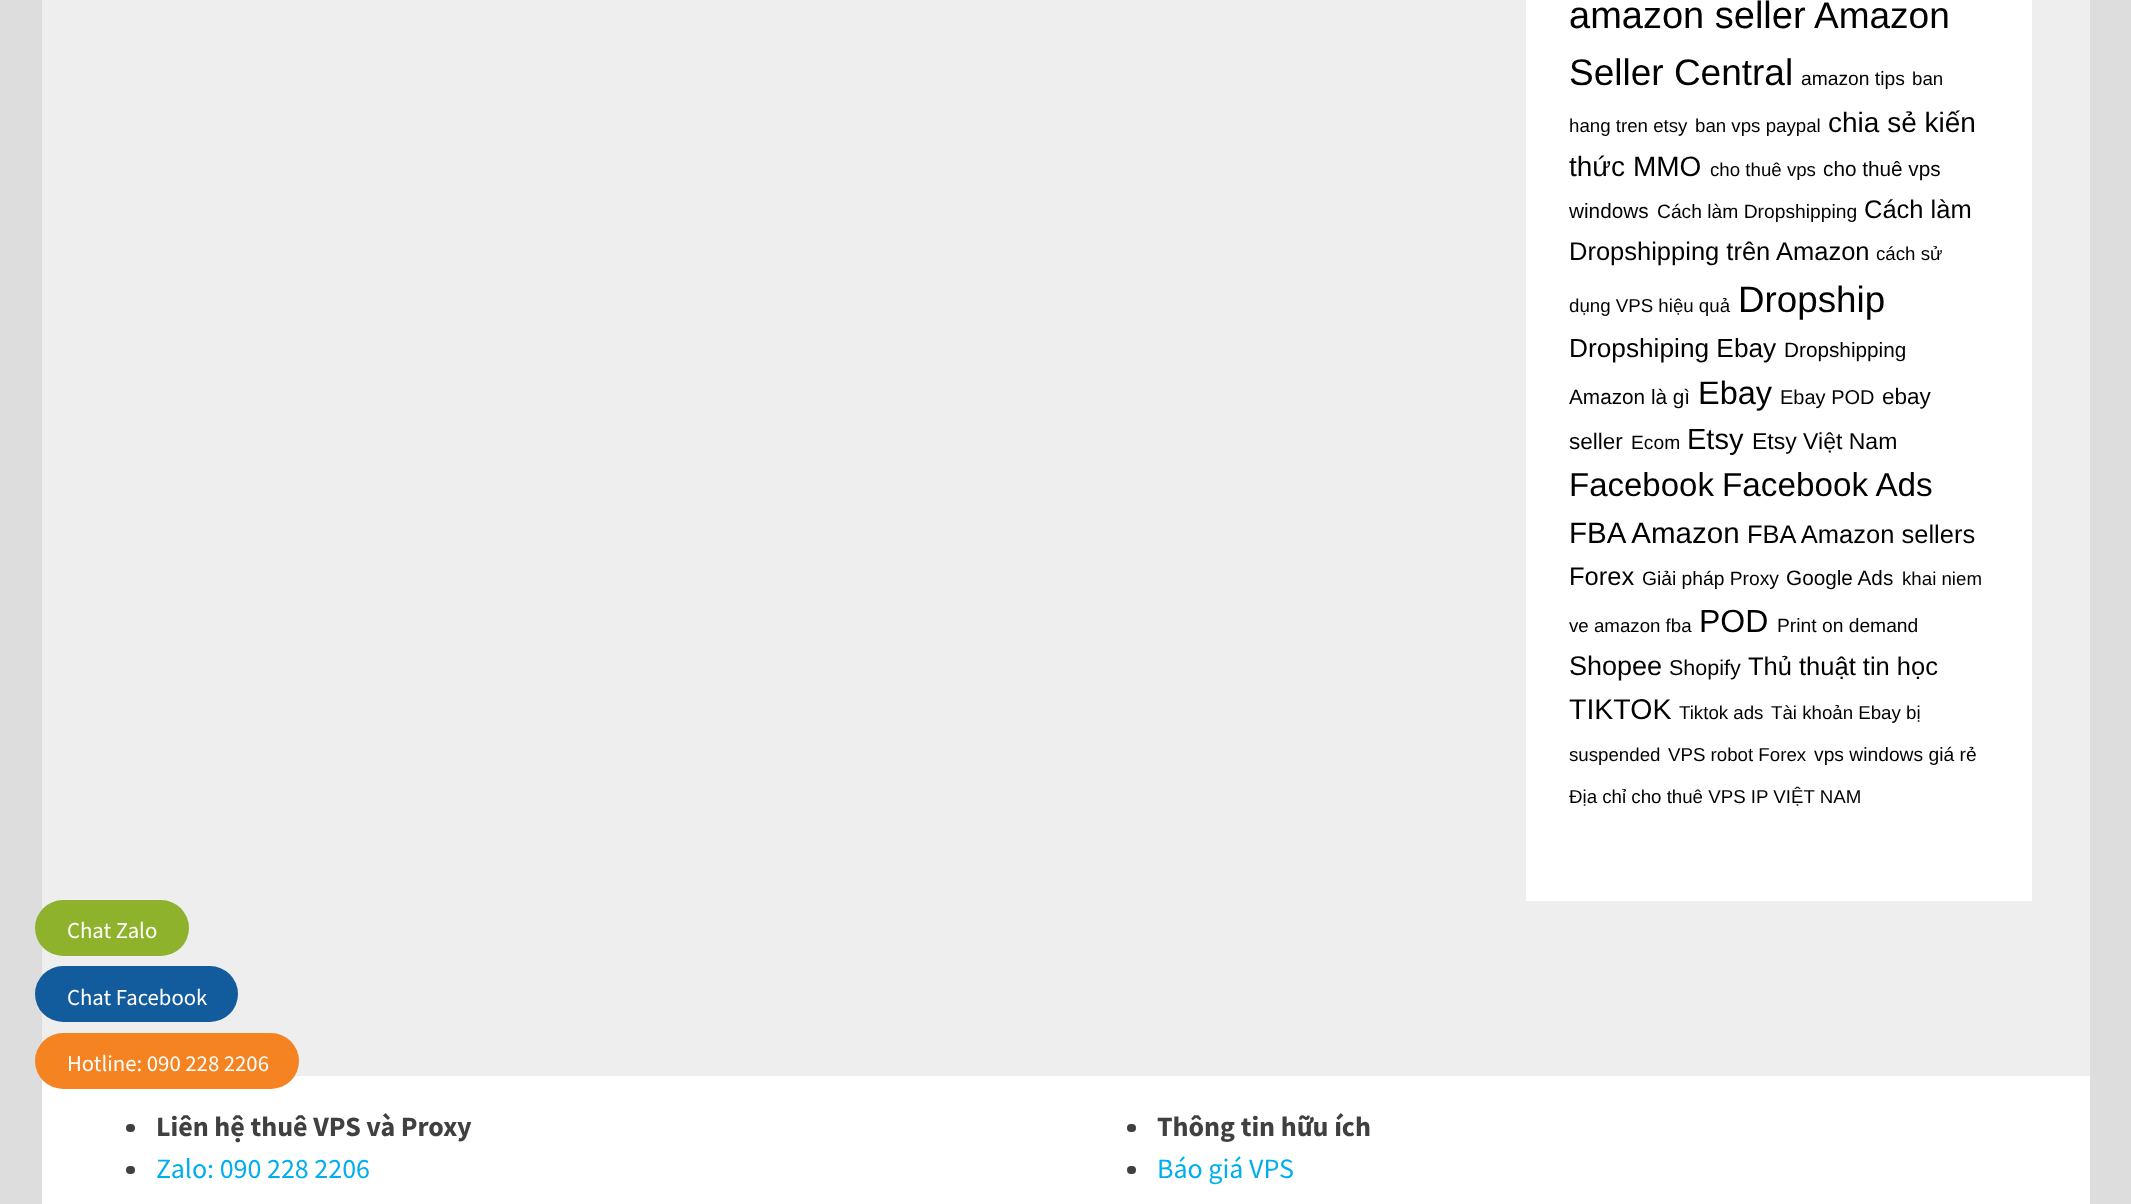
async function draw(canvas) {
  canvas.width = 2131;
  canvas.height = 1204;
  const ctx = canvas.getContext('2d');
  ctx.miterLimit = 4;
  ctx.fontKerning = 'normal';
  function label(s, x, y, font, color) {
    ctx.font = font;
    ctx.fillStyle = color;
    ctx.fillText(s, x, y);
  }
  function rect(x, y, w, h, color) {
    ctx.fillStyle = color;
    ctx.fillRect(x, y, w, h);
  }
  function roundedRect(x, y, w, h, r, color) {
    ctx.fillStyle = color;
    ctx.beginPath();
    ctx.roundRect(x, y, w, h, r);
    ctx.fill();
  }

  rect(0, 0, 2131, 1204, '#ddd');
  rect(42, 1076, 2048, 128, '#fff');
  rect(42, 0, 2048, 1076, '#eee');
  rect(1526, 0, 506, 901, '#fff');
  label('amazon seller', 1569, 28, '38px Liberation Sans', '#000');
  label('Amazon', 1814, 28, '37px Liberation Sans', '#000');
  label('Seller Central', 1569, 85, '37px Liberation Sans', '#000');
  label('amazon tips', 1801, 85, '19.25px Liberation Sans', '#000');
  label('ban', 1912, 85, '18.7px Liberation Sans', '#000');
  label('hang tren etsy', 1569, 132, '18.7px Liberation Sans', '#000');
  label('ban vps paypal', 1695, 132, '18.7px Liberation Sans', '#000');
  label('chia sẻ kiến', 1828, 132, '28px Liberation Sans', '#000');
  label('thức MMO', 1569, 176, '28px Liberation Sans', '#000');
  label('cho thuê vps', 1710, 176, '18.7px Liberation Sans', '#000');
  label('cho thuê vps', 1823, 176, '20.75px Liberation Sans', '#000');
  label('windows', 1569, 218, '20.75px Liberation Sans', '#000');
  label('Cách làm Dropshipping', 1657, 218, '19.25px Liberation Sans', '#000');
  label('Cách làm', 1864, 218, '25.5px Liberation Sans', '#000');
  label('Dropshipping trên Amazon', 1569, 260, '25.5px Liberation Sans', '#000');
  label('cách sử', 1876, 260, '18.7px Liberation Sans', '#000');
  label('dụng VPS hiệu quả', 1569, 312, '18.7px Liberation Sans', '#000');
  label('Dropship', 1738, 312, '36.75px Liberation Sans', '#000');
  label('Dropshiping Ebay', 1569, 357, '26.25px Liberation Sans', '#000');
  label('Dropshipping', 1784, 357, '20.75px Liberation Sans', '#000');
  label('Amazon là gì', 1569, 404, '20.75px Liberation Sans', '#000');
  label('Ebay', 1698, 404, '32.5px Liberation Sans', '#000');
  label('Ebay POD', 1780, 404, '20px Liberation Sans', '#000');
  label('ebay', 1882, 404, '22.5px Liberation Sans', '#000');
  label('seller', 1569, 449, '22.5px Liberation Sans', '#000');
  label('Ecom', 1631, 449, '19.25px Liberation Sans', '#000');
  label('Etsy', 1687, 449, '29px Liberation Sans', '#000');
  label('Etsy Việt Nam', 1752, 449, '23px Liberation Sans', '#000');
  label('Facebook', 1569, 496, '33px Liberation Sans', '#000');
  label('Facebook Ads', 1722, 496, '33.25px Liberation Sans', '#000');
  label('FBA Amazon', 1569, 543, '29.5px Liberation Sans', '#000');
  label('FBA Amazon sellers', 1747, 543, '25.5px Liberation Sans', '#000');
  label('Forex', 1569, 585, '25.5px Liberation Sans', '#000');
  label('Giải pháp Proxy', 1642, 585, '19.25px Liberation Sans', '#000');
  label('Google Ads', 1786, 585, '20.75px Liberation Sans', '#000');
  label('khai niem', 1902, 585, '18.7px Liberation Sans', '#000');
  label('ve amazon fba', 1569, 632, '18.7px Liberation Sans', '#000');
  label('POD', 1699, 632, '32px Liberation Sans', '#000');
  label('Print on demand', 1777, 632, '19.25px Liberation Sans', '#000');
  label('Shopee', 1569, 675, '27px Liberation Sans', '#000');
  label('Shopify', 1669, 675, '21.5px Liberation Sans', '#000');
  label('Thủ thuật tin học', 1748, 675, '25.5px Liberation Sans', '#000');
  label('TIKTOK', 1569, 719, '28.5px Liberation Sans', '#000');
  label('Tiktok ads', 1679, 719, '18.7px Liberation Sans', '#000');
  label('Tài khoản Ebay bị', 1771, 719, '18.7px Liberation Sans', '#000');
  label('suspended', 1569, 761, '18.7px Liberation Sans', '#000');
  label('VPS robot Forex', 1668, 761, '18.7px Liberation Sans', '#000');
  label('vps windows giá rẻ', 1814, 761, '19.25px Liberation Sans', '#000');
  label('Địa chỉ cho thuê VPS IP VIỆT NAM', 1569, 803, '18.7px Liberation Sans', '#000');
  roundedRect(126, 1124, 9, 8, 4, '#404040');
  label('Liên hệ thuê VPS và Proxy', 156, 1136, 'bold 28px Source Sans Pro', '#404040');
  roundedRect(126, 1166, 9, 8, 4, '#404040');
  label('Zalo: 090 228 2206', 156, 1178, '28px Source Sans Pro', '#00aeef');
  roundedRect(1127, 1124, 9, 8, 4, '#404040');
  label('Thông tin hữu ích', 1157, 1136, 'bold 28px Source Sans Pro', '#404040');
  roundedRect(1127, 1166, 9, 8, 4, '#404040');
  label('Báo giá VPS', 1157, 1178, '28px Source Sans Pro', '#00aeef');
  roundedRect(35, 900, 154, 56, 28, '#8eb22b');
  label('Chat Zalo', 67, 938, '22.75px Source Sans Pro', '#fff');
  roundedRect(35, 966, 203, 56, 28, '#125c9e');
  label('Chat Facebook', 67, 1005, '22.75px Source Sans Pro', '#fff');
  roundedRect(35, 1033, 264, 56, 28, '#f58322');
  label('Hotline: 090 228 2206', 67, 1071, '22.75px Source Sans Pro', '#fff');
}

draw(document.querySelector('canvas'));
